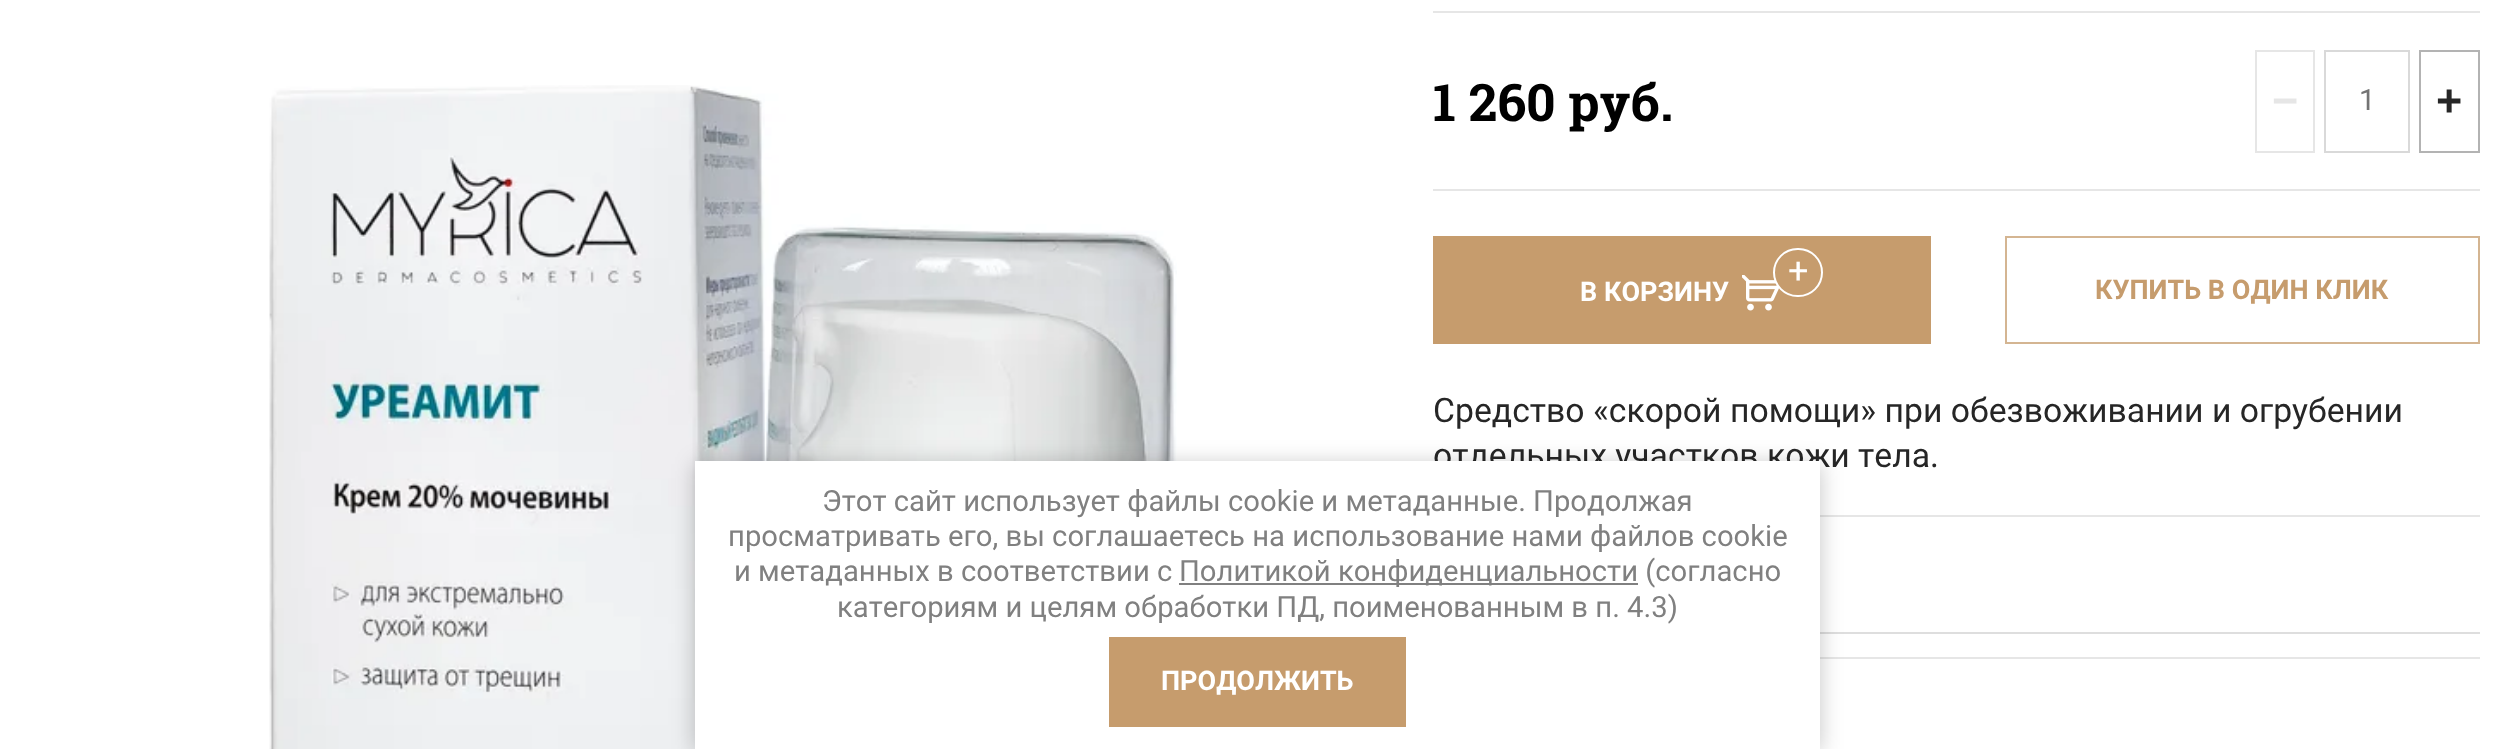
async function draw(canvas) {
  canvas.width = 2515;
  canvas.height = 749;
  const ctx = canvas.getContext('2d');
  ctx.miterLimit = 4;
  ctx.fontKerning = 'normal';
  function label(s, x, y, font, color) {
    ctx.font = font;
    ctx.fillStyle = color;
    ctx.fillText(s, x, y);
  }
  function rect(x, y, w, h, color) {
    ctx.fillStyle = color;
    ctx.fillRect(x, y, w, h);
  }
  async function image(src, x, y, w, h) {
    const img = new Image();
    img.src = src;
    await img.decode();
    ctx.drawImage(img, x, y, w, h);
  }

  rect(0, 0, 2515, 749, '#fff');
  await image('assets/img1.png', 269, 85, 908, 664);
  rect(1433, 11, 1047, 2, '#e6e6e6');
  rect(1433, 189, 1047, 2, '#e6e6e6');
  label('1 260 руб.', 1433, 121, 'bold 51.75px Roboto Slab', '#000');
  ctx.strokeStyle = '#e6e6e6';
  ctx.lineWidth = 2;
  ctx.strokeRect(2256, 51, 58, 101);
  label('−', 2272, 116, 'bold 45px Liberation Sans', '#e6e6e6');
  ctx.strokeStyle = '#d9d9d9';
  ctx.strokeRect(2325, 51, 84, 101);
  label('1', 2359, 110, '29.25px Roboto', '#737373');
  ctx.strokeStyle = '#b3b3b3';
  ctx.strokeRect(2420, 51, 59, 101);
  label('+', 2436, 116, 'bold 45px Liberation Sans', '#262626');
  rect(1433, 236, 498, 108, '#c69c6d');
  await image('assets/img2.png', 1742, 275, 38, 36);
  ctx.beginPath();
  ctx.roundRect(1774, 249, 48, 47, 23.5);
  ctx.fill();
  ctx.strokeStyle = '#fff';
  ctx.stroke();
  label('+', 1788, 283, '36px Roboto', '#fff');
  label('В КОРЗИНУ', 1580, 301, 'bold 27px Roboto', '#fff');
  ctx.strokeStyle = '#d4b592';
  ctx.strokeRect(2006, 237, 473, 106);
  label('КУПИТЬ В ОДИН КЛИК', 2095, 299, 'bold 27px Roboto', '#c69c6d');
  label('Средство «скорой помощи» при обезвоживании и огрубении', 1433, 422, '33.75px Roboto', '#262626');
  label('отдельных участков кожи тела.', 1433, 467, '33.75px Roboto', '#262626');
  rect(1820, 515, 660, 2, '#e6e6e6');
  rect(1820, 657, 660, 2, '#e6e6e6');
  rect(1820, 632, 660, 2, '#dedede');
  ctx.fillStyle = '#0000003b';
  ctx.filter = 'blur(11px)';
  ctx.beginPath();
  ctx.rect(695, 464, 1125, 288);
  ctx.fill();
  ctx.filter = 'none';
  rect(695, 461, 1125, 288, '#fff');
  label('Этот сайт использует файлы cookie и метаданные. Продолжая', 822, 511, '29.25px Roboto', '#808080');
  label('просматривать его, вы соглашаетесь на использование нами файлов cookie', 728, 546, '29.25px Roboto', '#808080');
  label('и метаданных в соответствии с', 734, 581, '29.25px Roboto', '#808080');
  rect(1179, 583, 459, 2, '#808080');
  label('Политикой конфиденциальности (согласно', 1179, 581, '29.25px Roboto', '#808080');
  label('категориям и целям обработки ПД, поименованным в п. 4.3)', 837, 617, '29.25px Roboto', '#808080');
  rect(1109, 637, 297, 90, '#c69c6d');
  label('ПРОДОЛЖИТЬ', 1161, 690, 'bold 27px Roboto', '#fff');
}

draw(document.querySelector('canvas'));
